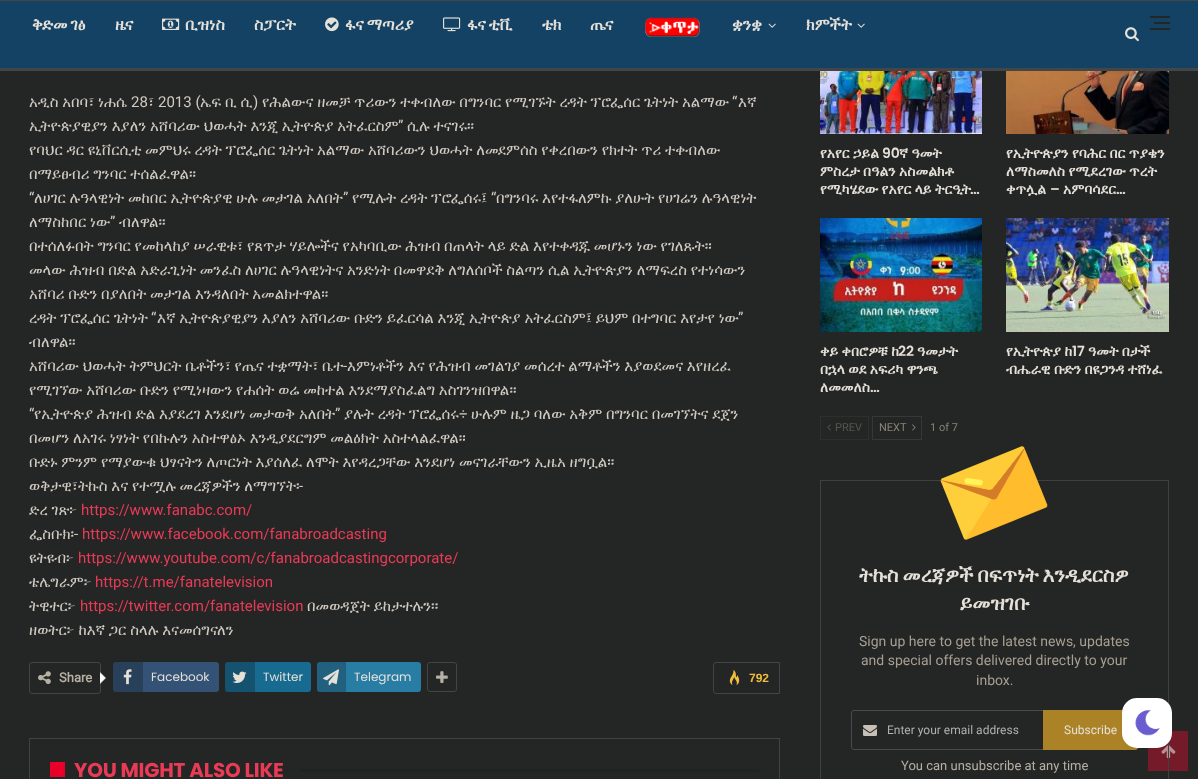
async function draw(canvas) {
  canvas.width = 1198;
  canvas.height = 779;
  const ctx = canvas.getContext('2d');
  ctx.miterLimit = 4;
  ctx.fontKerning = 'normal';
  function label(s, x, y, font, color) {
    ctx.font = font;
    ctx.fillStyle = color;
    ctx.fillText(s, x, y);
  }
  function rect(x, y, w, h, color) {
    ctx.fillStyle = color;
    ctx.fillRect(x, y, w, h);
  }
  function roundedRect(x, y, w, h, r, color) {
    ctx.fillStyle = color;
    ctx.beginPath();
    ctx.roundRect(x, y, w, h, r);
    ctx.fill();
  }
  async function image(src, x, y, w, h) {
    const img = new Image();
    img.src = src;
    await img.decode();
    ctx.drawImage(img, x, y, w, h);
  }
  let path;

  rect(0, 0, 1198, 779, '#242525');
  rect(0, 1, 1198, 67, '#134265');
  rect(0, 0, 1198, 1, '#434646');
  rect(0, 68, 1198, 3, '#434646');
  ctx.wordSpacing = '-1px';
  label('ቅድመ ገፅ', 32, 30, 'bold 16px FreeSerif', '#e5e0d8');
  ctx.wordSpacing = '0px';
  label('ዜና', 115, 30, 'bold 16px FreeSerif', '#e5e0d8');
  await image('assets/img1.png', 162, 18, 18, 12);
  label('ቢዝነስ', 185, 30, 'bold 16px FreeSerif', '#e5e0d8');
  label('ስፓርት', 254, 30, 'bold 16px FreeSerif', '#e5e0d8');
  await image('assets/img2.png', 325, 17, 14, 15);
  ctx.wordSpacing = '-1px';
  label('ፋና ማጣሪያ', 345, 30, 'bold 16px FreeSerif', '#e5e0d8');
  await image('assets/img3.png', 443, 17, 18, 15);
  label('ፋና ቲቪ', 467, 30, 'bold 16px FreeSerif', '#e5e0d8');
  ctx.wordSpacing = '0px';
  label('ቴክ', 542, 30, 'bold 16px FreeSerif', '#e5e0d8');
  label('ጤና', 590, 30, 'bold 16px FreeSerif', '#e5e0d8');
  await image('assets/img4.png', 645, 17, 55, 20);
  label('ቋንቋ', 732, 30, 'bold 16px FreeSerif', '#e5e0d8');
  await image('assets/img5.png', 768, 23, 8, 5);
  label('ክምችት', 806, 30, 'bold 16px FreeSerif', '#e5e0d8');
  await image('assets/img5.png', 857, 23, 8, 5);
  rect(1154, 22, 16, 2, '#242525');
  rect(1150, 16, 20, 2, '#242525');
  rect(1150, 28, 20, 2, '#242525');
  await image('assets/img6.png', 1125, 27, 14, 15);
  label('አዲስ አበባ፣ ነሐሴ', 29, 107, '15px FreeSerif', '#d1cbc2');
  label('28', 131, 107, '15px Roboto', '#d1cbc2');
  label('፣', 148, 107, '15px FreeSerif', '#d1cbc2');
  label('2013 (', 158, 107, '15px Roboto', '#d1cbc2');
  label('ኤፍ ቢ ሲ', 200, 107, '15px FreeSerif', '#d1cbc2');
  label(')', 253, 107, '15px Roboto', '#d1cbc2');
  label('የሕልውና ዘመቻ ጥሪውን ተቀብለው በግንባር የሚገኙት ረዳት ፕሮፌሰር ጌትነት አልማው', 262, 107, '15px FreeSerif', '#d1cbc2');
  label('“', 732, 107, '15px Roboto', '#d1cbc2');
  label('እኛ', 738, 107, '15px FreeSerif', '#d1cbc2');
  label('ኢትዮጵያዊያን እያለን አሸባሪው ህወሓት እንጂ ኢትዮጵያ አትፈርስም', 29, 131, '15px FreeSerif', '#d1cbc2');
  label('”', 398, 131, '15px Roboto', '#d1cbc2');
  label('ሲሉ ተናገሩ።', 407, 131, '15px FreeSerif', '#d1cbc2');
  label('የባህር ዳር ዩኒቨርሲቲ መምህሩ ረዳት ፕሮፌሰር ጌትነት አልማው አሸባሪውን ህወሓት ለመደምሰስ የቀረበውን የክተት ጥሪ ተቀብለው', 29, 155, '15px FreeSerif', '#d1cbc2');
  label('በማይፀብሪ ግንባር ተሰልፈዋል።', 29, 179, '15px FreeSerif', '#d1cbc2');
  label('“', 29, 203, '15px Roboto', '#d1cbc2');
  label('ለሀገር ሉዓላዊነት መከበር ኢትዮጵያዊ ሁሉ መታገል አለበት', 34, 203, '15px FreeSerif', '#d1cbc2');
  label('”', 343, 203, '15px Roboto', '#d1cbc2');
  label('የሚሉት ረዳት ፕሮፌሰሩ፤', 352, 203, '15px FreeSerif', '#d1cbc2');
  label('“', 491, 203, '15px Roboto', '#d1cbc2');
  label('በግንባሩ እየተፋለምኩ ያለሁት የሀገሬን ሉዓላዊነት', 496, 203, '15px FreeSerif', '#d1cbc2');
  label('ለማስከበር ነው', 29, 227, '15px FreeSerif', '#d1cbc2');
  label('”', 110, 227, '15px Roboto', '#d1cbc2');
  label('ብለዋል፡፡', 119, 227, '15px FreeSerif', '#d1cbc2');
  label('በተሰለፉበት ግንባር የመከላከያ ሠራዊቱ፣ የጸጥታ ሃይሎችና የአካባቢው ሕዝብ በጠላት ላይ ድል እየተቀዳጁ መሆኑን ነው የገለጹት፡፡', 29, 251, '15px FreeSerif', '#d1cbc2');
  label('መላው ሕዝብ በድል አድራጊነት መንፈስ ለሀገር ሉዓላዊነትና አንድነት በመዋደቅ ለግለሰቦች ስልጣን ሲል ኢትዮጵያን ለማፍረስ የተነሳውን', 29, 275, '15px FreeSerif', '#d1cbc2');
  label('አሸባሪ ቡድን በያለበት መታገል እንዳለበት አመልክተዋል።', 29, 299, '15px FreeSerif', '#d1cbc2');
  label('ረዳት ፕሮፌሰር ጌትነት', 29, 323, '15px FreeSerif', '#d1cbc2');
  label('“', 151, 323, '15px Roboto', '#d1cbc2');
  label('እኛ ኢትዮጵያዊያን እያለን አሸባሪው ቡድን ይፈርሳል እንጂ ኢትዮጵያ አትፈርስም፤ ይህም በተግባር እየታየ ነው', 157, 323, '15px FreeSerif', '#d1cbc2');
  label('”', 738, 323, '15px Roboto', '#d1cbc2');
  label('ብለዋል።', 29, 347, '15px FreeSerif', '#d1cbc2');
  label('አሸባሪው ህወሓት ትምህርት ቤቶችን፣ የጤና ተቋማት፣ ቤተ', 29, 371, '15px FreeSerif', '#d1cbc2');
  label('-', 343, 371, '15px Roboto', '#d1cbc2');
  label('እምነቶችን እና የሕዝብ መገልገያ መሰረተ ልማቶችን እያወደመና እየዘረፈ', 347, 371, '15px FreeSerif', '#d1cbc2');
  label('የሚገኘው አሸባሪው ቡድን የሚነዛውን የሐሰት ወሬ መከተል እንደማያስፈልግ አስገንዝበዋል።', 29, 395, '15px FreeSerif', '#d1cbc2');
  label('“', 29, 419, '15px Roboto', '#d1cbc2');
  label('የኢትዮጵያ ሕዝብ ድል እያደረገ እንደሆነ መታወቅ አለበት', 34, 419, '15px FreeSerif', '#d1cbc2');
  label('”', 335, 419, '15px Roboto', '#d1cbc2');
  label('ያሉት ረዳት ፕሮፌሰሩ', 344, 419, '15px FreeSerif', '#d1cbc2');
  label('÷', 459, 419, '15px Roboto', '#d1cbc2');
  label('ሁሉም ዜጋ ባለው አቅም በግንባር በመገኘትና ደጀን', 471, 419, '15px FreeSerif', '#d1cbc2');
  label('በመሆን ለአገሩ ነፃነት የበኩሉን አስተዋፅኦ እንዲያደርግም መልዕክት አስተላልፈዋል።', 29, 443, '15px FreeSerif', '#d1cbc2');
  label('ቡድኑ ምንም የማያውቁ ህፃናትን ለጦርነት እያሰለፈ ለሞት እየዳረጋቸው እንደሆነ መናገራቸውን ኢዜአ ዘግቧል፡፡', 29, 467, '15px FreeSerif', '#d1cbc2');
  label('ወቅታዊ፣ትኩስ እና የተሟሉ መረጃዎችን ለማግኘት፡', 29, 491, '15px FreeSerif', '#d1cbc2');
  label('-', 299, 491, '15px Roboto', '#d1cbc2');
  label('ድረ ገጽ፦', 29, 515, '15px FreeSerif', '#d1cbc2');
  label('https://www.fanabc.com/', 81, 515, '15px Roboto', '#e93b55');
  label('ፌስቡክ፡', 29, 539, '15px FreeSerif', '#d1cbc2');
  label('-', 74, 539, '15px Roboto', '#d1cbc2');
  label('https://www.facebook.com/fanabroadcasting', 82, 539, '15px Roboto', '#e93b55');
  label('ዩትዩብ፦', 29, 563, '15px FreeSerif', '#d1cbc2');
  label('https://www.youtube.com/c/fanabroadcastingcorporate/', 78, 563, '15px Roboto', '#e93b55');
  label('ቴሌግራም፦', 29, 587, '15px FreeSerif', '#d1cbc2');
  label('https://t.me/fanatelevision', 95, 587, '15px Roboto', '#e93b55');
  label('ትዊተር፦', 29, 611, '15px FreeSerif', '#d1cbc2');
  label('https://twitter.com/fanatelevision', 80, 611, '15px Roboto', '#e93b55');
  label('በመወዳጀት ይከታተሉን፡፡', 307, 611, '15px FreeSerif', '#d1cbc2');
  label('ዘወትር፦ ከእኛ ጋር ስላሉ እናመሰግናለን', 29, 635, '15px FreeSerif', '#d1cbc2');
  ctx.beginPath();
  ctx.roundRect(29.5, 662.5, 71, 31, 2.5);
  ctx.strokeStyle = '#424545';
  ctx.stroke();
  await image('assets/img7.png', 38, 671, 13, 13);
  label('Share', 59, 682, 'bold 13px Roboto', '#b7b0a4');
  ctx.fillStyle = '#d7d7d7';
  path = new Path2D('M100 684V672L106 678Z');
  ctx.fill(path);
  ctx.fillStyle = '#fff';
  path = new Path2D('M100 683V673L105 678Z');
  ctx.fill(path);
  roundedRect(113, 662, 106, 30, 3, '#335276');
  ctx.fillStyle = '#0d0d0d40';
  ctx.beginPath();
  ctx.roundRect(113, 662, 30, 30, [3, 0, 0, 3]);
  ctx.fill();
  await image('assets/img8.png', 123, 669, 9, 16);
  label('Facebook', 151, 681, '12px Poppins', '#e5e0d8');
  roundedRect(225, 662, 86, 30, 3, '#176a90');
  ctx.fillStyle = '#0d0d0d40';
  ctx.beginPath();
  ctx.roundRect(225, 662, 30, 30, [3, 0, 0, 3]);
  ctx.fill();
  await image('assets/img9.png', 232, 671, 15, 12);
  label('Twitter', 263, 681, '12px Poppins', '#e5e0d8');
  roundedRect(317, 662, 104, 30, 3, '#287da5');
  ctx.fillStyle = '#0d0d0d40';
  ctx.beginPath();
  ctx.roundRect(317, 662, 29, 30, [3, 0, 0, 3]);
  ctx.fill();
  await image('assets/img10.png', 323, 669, 16, 17);
  label('Telegram', 354, 681, '12px Poppins', '#e5e0d8');
  ctx.beginPath();
  ctx.roundRect(427.5, 662.5, 29, 29, 2.5);
  ctx.stroke();
  await image('assets/img11.png', 436, 671, 12, 12);
  ctx.beginPath();
  ctx.roundRect(713.5, 662.5, 66, 31, [2.5, 0, 0, 2.5]);
  ctx.stroke();
  await image('assets/img12.png', 729, 670, 11, 15);
  label('792', 749, 682, 'bold 12px Liberation Sans', '#f1bd3c');
  ctx.strokeStyle = '#404343';
  ctx.strokeRect(29.5, 738.5, 750, 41);
  rect(50, 762, 15, 15, '#e80028');
  ctx.letterSpacing = '-0.25px';
  label('YOU MIGHT ALSO LIKE', 74, 777, 'bold 20px Poppins', '#e93b55');
  rect(300, 769, 459, 3, '#212222');
  await image('assets/img13.png', 820, 71, 162, 63);
  ctx.letterSpacing = '0px';
  label('የአየር ኃይል', 820, 158, 'bold 14px FreeSerif', '#e5e0d8');
  label('90', 882, 158, '600 14px Poppins', '#e5e0d8');
  label('ኛ ዓመት', 899, 158, 'bold 14px FreeSerif', '#e5e0d8');
  label('ምስረታ በዓልን አስመልክቶ', 820, 176, 'bold 14px FreeSerif', '#e5e0d8');
  label('የሚካሄደው የአየር ላይ ትርዒት', 820, 194, 'bold 14px FreeSerif', '#e5e0d8');
  label('…', 970, 194, '600 14px Poppins', '#e5e0d8');
  await image('assets/img14.png', 1006, 71, 163, 63);
  label('የኢትዮጵያን የባሕር በር ጥያቄን', 1006, 158, 'bold 14px FreeSerif', '#e5e0d8');
  label('ለማስመለስ የሚደረገው ጥረት', 1006, 176, 'bold 14px FreeSerif', '#e5e0d8');
  label('ቀጥሏል', 1006, 194, 'bold 14px FreeSerif', '#e5e0d8');
  label('–', 1050, 194, '600 14px Poppins', '#e5e0d8');
  label('አምባሳደር', 1063, 194, 'bold 14px FreeSerif', '#e5e0d8');
  label('…', 1116, 194, '600 14px Poppins', '#e5e0d8');
  await image('assets/img15.png', 820, 218, 162, 114);
  label('ቀይ ቀበሮዎቹ ከ', 820, 356, 'bold 14px FreeSerif', '#e5e0d8');
  label('22', 898, 356, '600 14px Poppins', '#e5e0d8');
  label('ዓመታት', 917, 356, 'bold 14px FreeSerif', '#e5e0d8');
  label('በኋላ ወደ አፍሪካ ዋንጫ', 820, 374, 'bold 14px FreeSerif', '#e5e0d8');
  label('ለመመለስ', 820, 392, 'bold 14px FreeSerif', '#e5e0d8');
  label('…', 870, 392, '600 14px Poppins', '#e5e0d8');
  await image('assets/img16.png', 1006, 218, 163, 114);
  label('የኢትዮጵያ ከ', 1006, 356, 'bold 14px FreeSerif', '#e5e0d8');
  label('17', 1072, 356, '600 14px Poppins', '#e5e0d8');
  label('ዓመት በታች', 1088, 356, 'bold 14px FreeSerif', '#e5e0d8');
  label('ብሔራዊ ቡድን በዩጋንዳ ተሸነፈ', 1006, 374, 'bold 14px FreeSerif', '#e5e0d8');
  ctx.strokeStyle = '#2d2f2f';
  ctx.strokeRect(820.5, 416.5, 48, 23);
  await image('assets/img17.png', 827, 424, 4, 7);
  label('PREV', 835, 431, '11px Roboto', '#57544f');
  ctx.strokeStyle = '#353838';
  ctx.strokeRect(872.5, 416.5, 49, 23);
  label('NEXT', 879, 431, '11px Roboto', '#8a8477');
  await image('assets/img18.png', 912, 424, 4, 7);
  label('1 of 7', 930, 431, '11px Roboto', '#8a8477');
  rect(1148, 731, 40, 40, '#751a29');
  await image('assets/img22.png', 1161, 745, 15, 14);
  ctx.strokeStyle = '#3f4141';
  ctx.strokeRect(820.5, 480.5, 348, 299);
  await image('assets/img19.png', 940, 445, 108, 96);
  ctx.wordSpacing = '-1px';
  label('ትኩስ መረጃዎች በፍጥነት እንዲደርስዎ', 859, 582, 'bold 20px FreeSerif', '#e5e0d8');
  ctx.wordSpacing = '0px';
  label('ይመዝገቡ', 960, 610, 'bold 20px FreeSerif', '#e5e0d8');
  label('Sign up here to get the latest news, updates', 859, 646, '14px Roboto', '#a89f92');
  label('and special offers delivered directly to your', 861, 665, '14px Roboto', '#a89f92');
  label('inbox.', 976, 685, '14px Roboto', '#a89f92');
  ctx.beginPath();
  ctx.roundRect(851.5, 710.5, 286, 39, 2.5);
  ctx.strokeStyle = '#484b4b';
  ctx.stroke();
  await image('assets/img20.png', 863, 725, 14, 11);
  label('Enter your email address', 887, 734, '12px Roboto', '#b1afaf');
  ctx.fillStyle = '#ac8226';
  ctx.beginPath();
  ctx.roundRect(1043, 710, 95, 40, [0, 3, 3, 0]);
  ctx.fill();
  label('Subscribe', 1064, 734, '12px Roboto', '#e5e0d8');
  label('You can unsubscribe at any time', 901, 770, '13px Roboto', '#b7b0a4');
  roundedRect(1122, 698, 50, 50, 15, '#fff');
  await image('assets/img21.png', 1135, 710, 25, 26);
}

draw(document.querySelector('canvas'));
